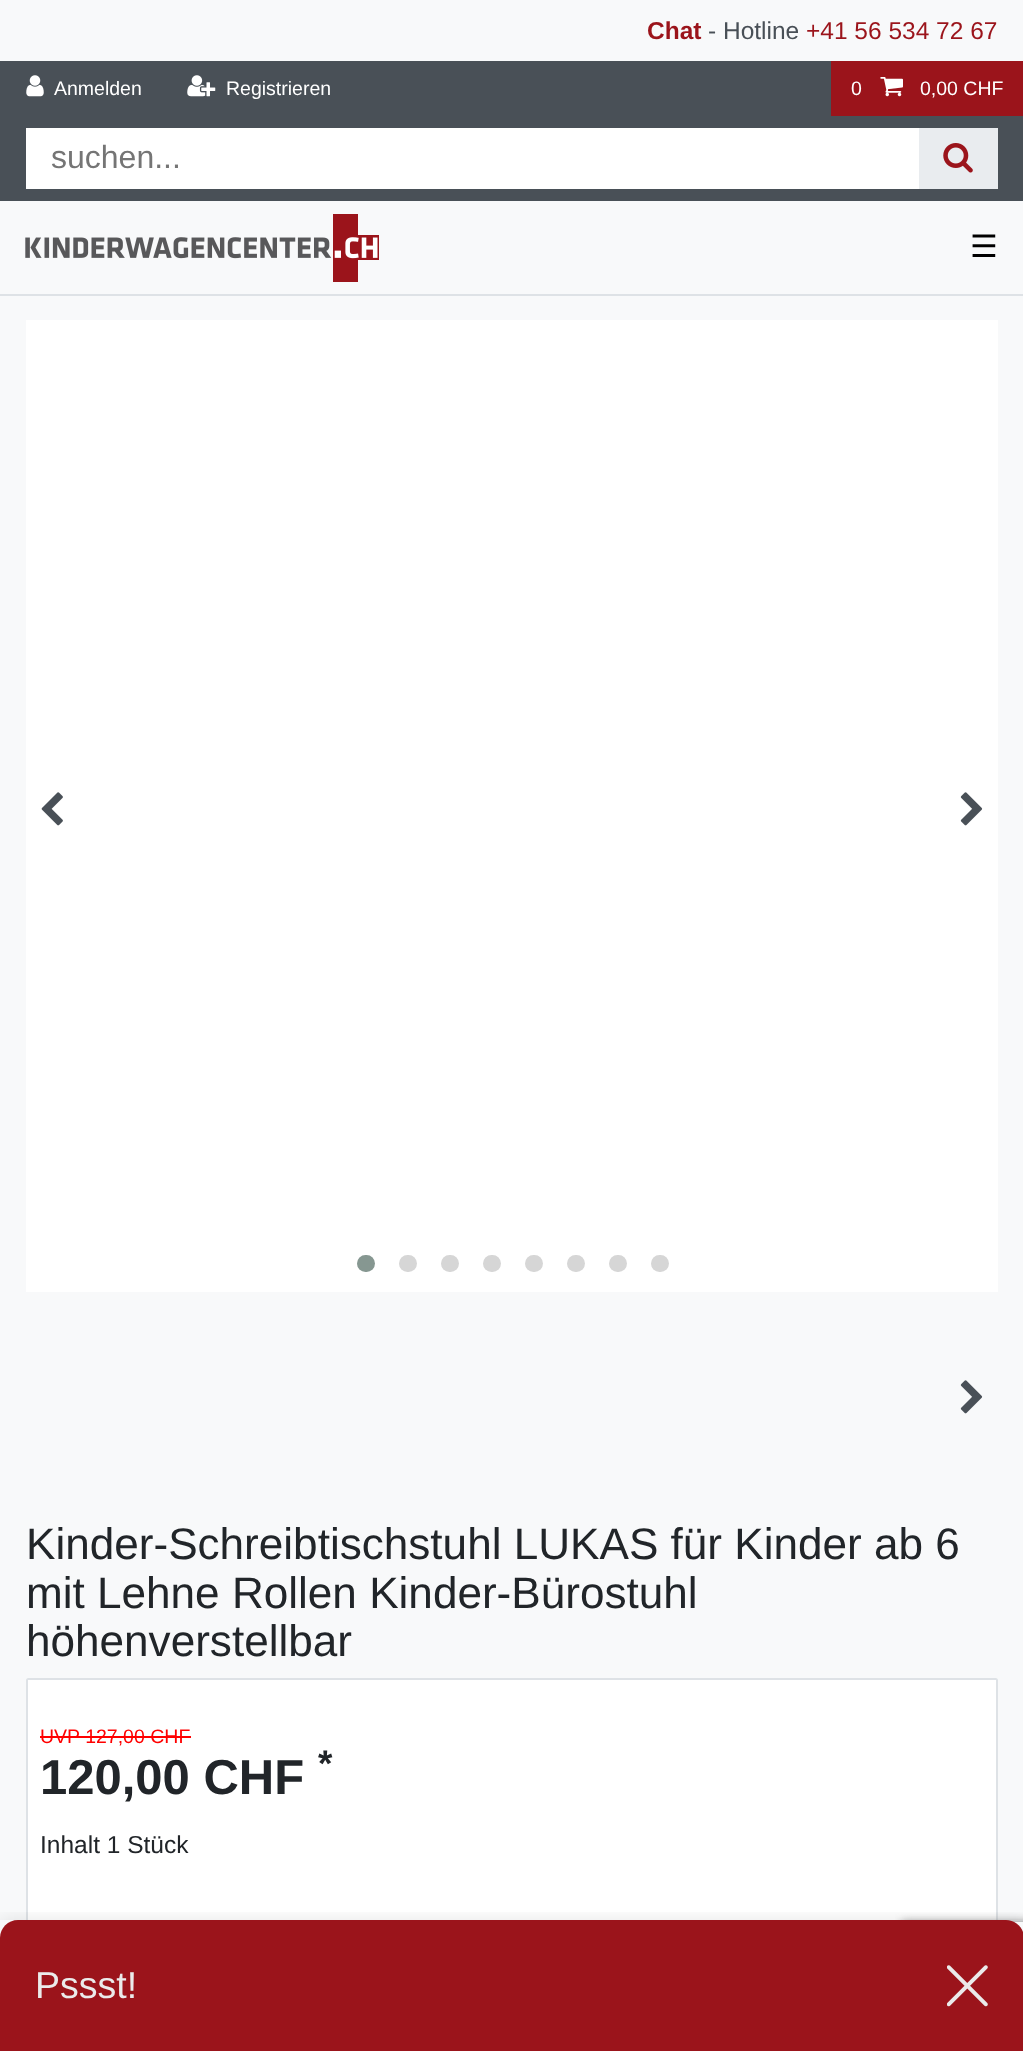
async function draw(canvas) {
  canvas.width = 1023;
  canvas.height = 2051;
  const ctx = canvas.getContext('2d');
  ctx.miterLimit = 4;
  ctx.fontKerning = 'normal';
  function label(s, x, y, font, color) {
    ctx.font = font;
    ctx.fillStyle = color;
    ctx.fillText(s, x, y);
  }
  function rect(x, y, w, h, color) {
    ctx.fillStyle = color;
    ctx.fillRect(x, y, w, h);
  }
  function roundedRect(x, y, w, h, r, color) {
    ctx.fillStyle = color;
    ctx.beginPath();
    ctx.roundRect(x, y, w, h, r);
    ctx.fill();
  }
  async function image(src, x, y, w, h) {
    const img = new Image();
    img.src = src;
    await img.decode();
    ctx.drawImage(img, x, y, w, h);
  }
  let path;

  rect(0, 0, 1023, 2051, '#f8f9fa');
  label('Chat', 647, 39, 'bold 24.5px Liberation Sans', '#9b141b');
  label('- Hotline', 708, 39, '24.5px Liberation Sans', '#495057');
  label('+41 56 534 72 67', 806, 39, '24.5px Liberation Sans', '#9b141b');
  rect(0, 61, 1023, 140, '#495057');
  await image('assets/img1.png', 26, 75, 18, 22);
  label('Anmelden', 54, 95, '19.5px Liberation Sans', '#fff');
  await image('assets/img2.png', 187, 75, 29, 22);
  label('Registrieren', 226, 95, '19.5px Liberation Sans', '#fff');
  rect(831, 61, 192, 55, '#9b141b');
  label('0', 851, 95, '19.5px Liberation Sans', '#fff');
  await image('assets/img3.png', 880, 77, 23, 20);
  label('0,00 CHF', 920, 95, '19.5px Liberation Sans', '#fff');
  rect(26, 128, 893, 61, '#fff');
  label('suchen...', 51, 168, '32px Liberation Sans', '#757575');
  rect(919, 128, 79, 61, '#e9ecef');
  await image('assets/img4.png', 943, 143, 30, 30);
  rect(0, 294, 1023, 2, '#dee2e6');
  await image('assets/img5.png', 25, 214, 354, 68);
  label('☰', 970, 257, '31px DejaVu Sans', '#000');
  rect(26, 320, 972, 972, '#fff');
  await image('assets/img6.png', 41, 792, 22, 34);
  await image('assets/img7.png', 960, 792, 23, 34);
  roundedRect(357, 1255, 18, 17, 8.5, '#869791');
  roundedRect(399, 1255, 18, 17, 8.5, '#d6d6d6');
  roundedRect(441, 1255, 18, 17, 8.5, '#d6d6d6');
  roundedRect(483, 1255, 18, 17, 8.5, '#d6d6d6');
  roundedRect(525, 1255, 18, 17, 8.5, '#d6d6d6');
  roundedRect(567, 1255, 18, 17, 8.5, '#d6d6d6');
  roundedRect(609, 1255, 18, 17, 8.5, '#d6d6d6');
  roundedRect(651, 1255, 18, 17, 8.5, '#d6d6d6');
  await image('assets/img8.png', 960, 1380, 23, 34);
  label('Kinder-Schreibtischstuhl LUKAS für Kinder ab 6', 26, 1559, '44.1px Liberation Sans', '#212529');
  label('mit Lehne Rollen Kinder-Bürostuhl', 26, 1608, '44.1px Liberation Sans', '#212529');
  label('höhenverstellbar', 26, 1656, '44.1px Liberation Sans', '#212529');
  ctx.beginPath();
  ctx.roundRect(27, 1679, 970, 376, 1.5);
  ctx.strokeStyle = '#dee2e6';
  ctx.lineWidth = 2;
  ctx.stroke();
  rect(28, 1680, 968, 240, '#fff');
  label('UVP 127,00 CHF', 40, 1743, '19.5px Liberation Sans', '#f00');
  rect(40, 1736, 151, 2, '#f00');
  label('*', 318, 1776, 'bold 37px Liberation Sans', '#212529');
  label('120,00 CHF', 40, 1794, 'bold 49px Liberation Sans', '#212529');
  label('Inhalt 1 Stück', 40, 1853, '24.5px Liberation Sans', '#212529');
  ctx.save();
  ctx.beginPath();
  ctx.rect(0, 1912, 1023, 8);
  ctx.clip();
  ctx.fillStyle = '#0000001a';
  ctx.filter = 'blur(9px)';
  ctx.beginPath();
  ctx.rect(0, 1920, 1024, 131);
  ctx.fill();
  ctx.filter = 'none';
  ctx.restore();
  ctx.save();
  ctx.beginPath();
  ctx.rect(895, 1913, 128, 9);
  ctx.clip();
  ctx.fillStyle = '#808080';
  ctx.filter = 'blur(4.5px)';
  ctx.beginPath();
  ctx.roundRect(901, 1922, 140, 105, 4);
  ctx.fill();
  ctx.filter = 'none';
  ctx.restore();
  ctx.fillStyle = '#9b141b';
  path = new Path2D('M18 1920H1006C1016 1920 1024 1928 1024 1938V2051H0V1938C0 1928 8 1920 18 1920Z');
  ctx.fill(path);
  label('Pssst!', 35, 1998, '37.5px Liberation Sans', '#ebebeb');
  await image('assets/img9.png', 947, 1965, 41, 42);
}

draw(document.querySelector('canvas'));
